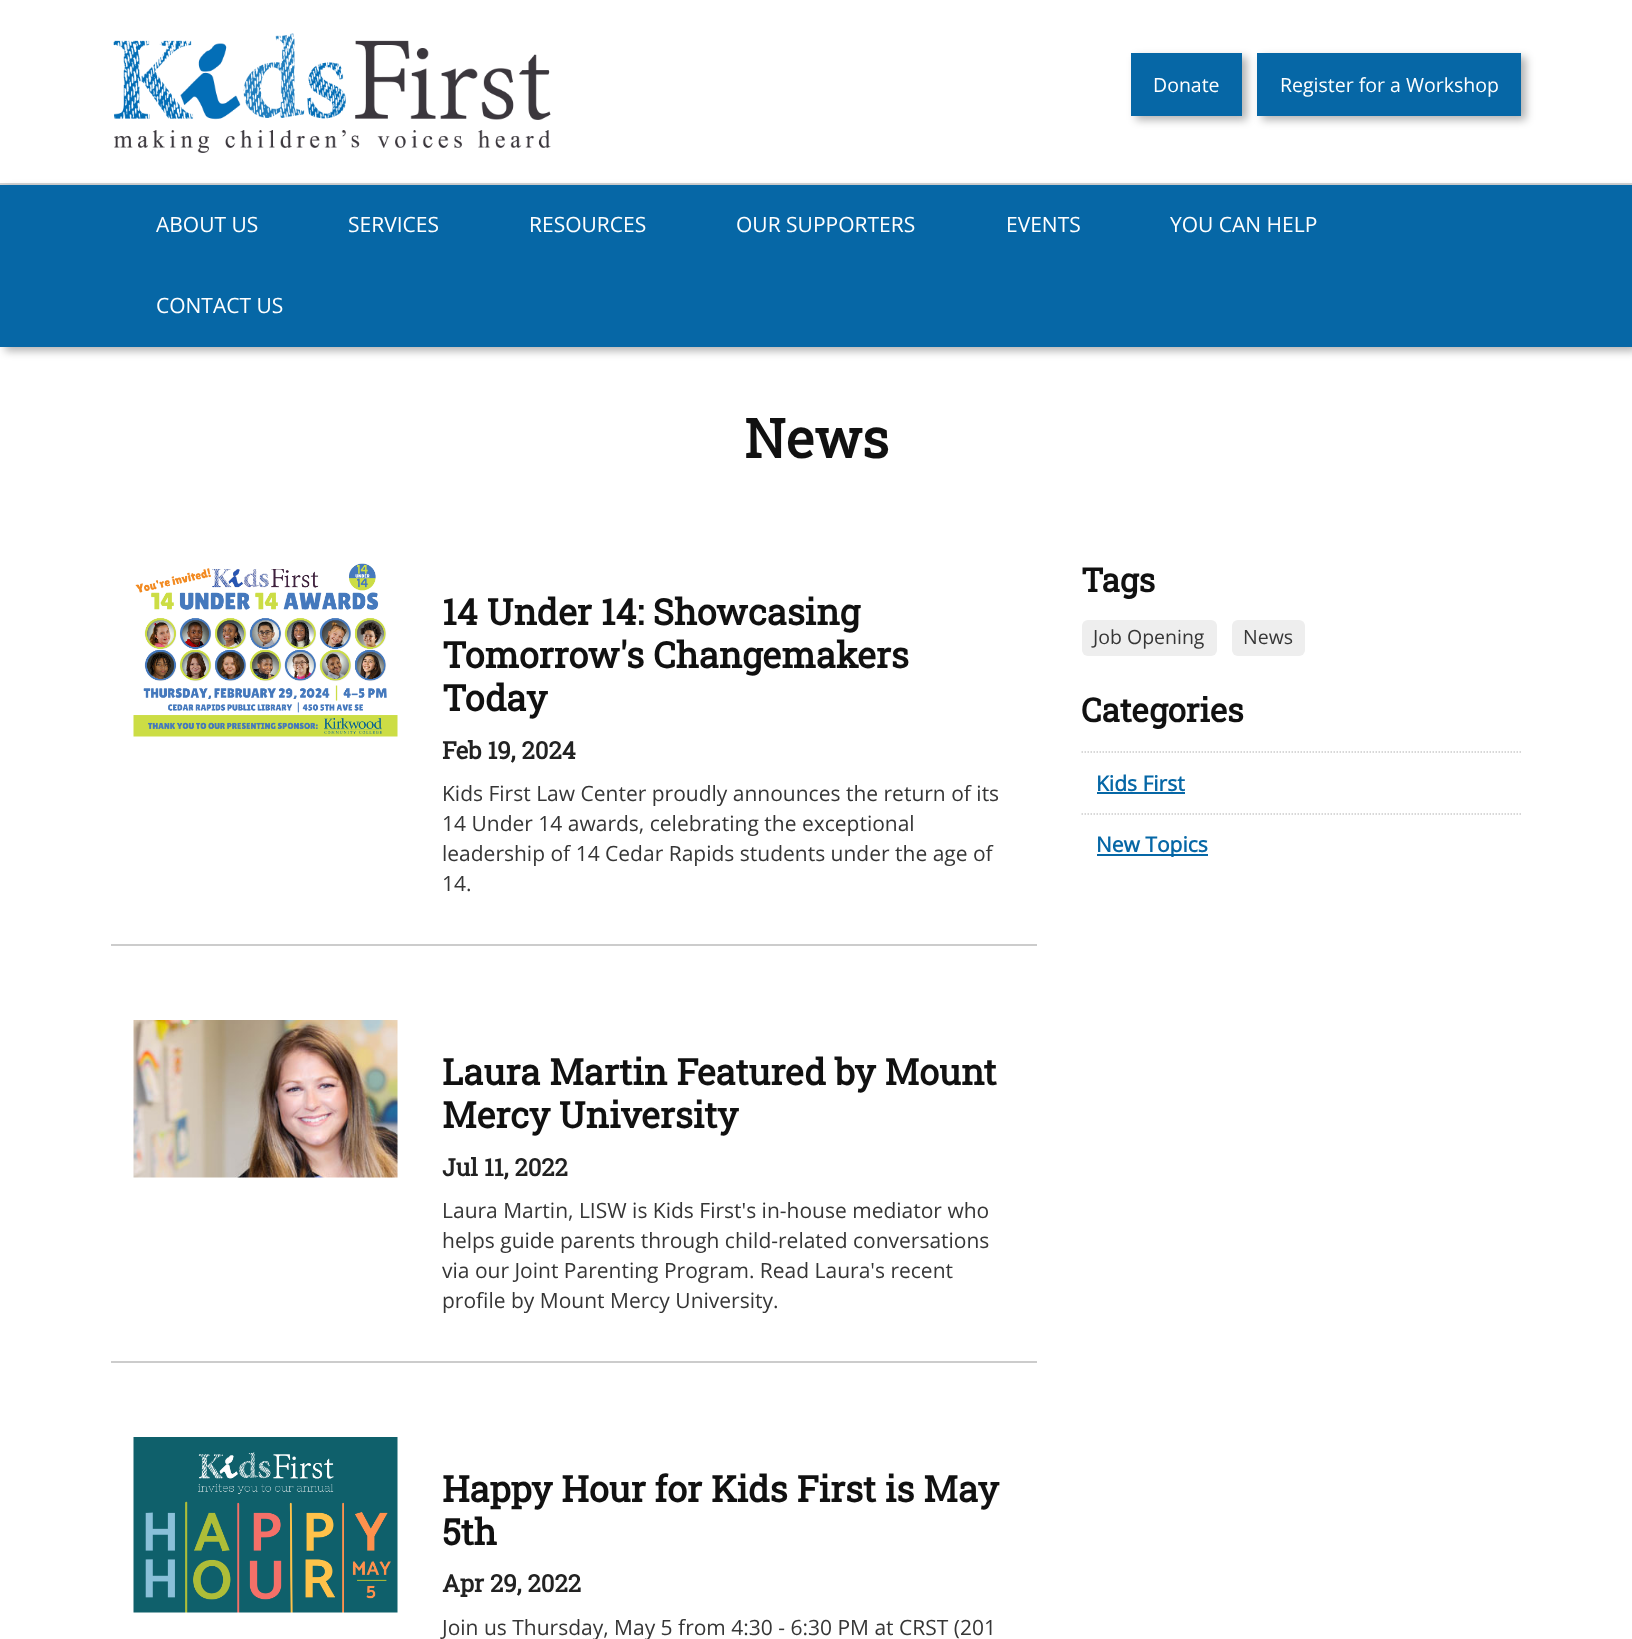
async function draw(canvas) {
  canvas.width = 1632;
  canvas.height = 1639;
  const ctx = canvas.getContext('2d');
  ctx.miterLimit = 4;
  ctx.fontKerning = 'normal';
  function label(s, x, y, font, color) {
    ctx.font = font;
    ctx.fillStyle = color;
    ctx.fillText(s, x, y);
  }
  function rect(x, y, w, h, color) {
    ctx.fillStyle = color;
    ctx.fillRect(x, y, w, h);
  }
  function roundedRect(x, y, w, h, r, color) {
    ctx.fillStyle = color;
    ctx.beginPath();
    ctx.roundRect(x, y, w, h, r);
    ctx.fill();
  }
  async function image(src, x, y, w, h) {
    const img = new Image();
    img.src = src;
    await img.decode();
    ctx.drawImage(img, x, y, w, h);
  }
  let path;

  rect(0, 0, 1632, 1639, '#fff');
  rect(0, 183, 1632, 2, '#d2d3d4');
  await image('assets/img1.png', 113, 33, 438, 120);
  ctx.fillStyle = '#0000004d';
  ctx.filter = 'blur(4px)';
  ctx.beginPath();
  ctx.rect(1136, 57, 111, 63);
  ctx.fill();
  ctx.filter = 'none';
  rect(1131, 53, 111, 63, '#0667a6');
  label('Donate', 1153, 92, '19.5px Open Sans', '#fff');
  ctx.fillStyle = '#0000004d';
  ctx.filter = 'blur(4px)';
  ctx.beginPath();
  ctx.rect(1262, 57, 264, 63);
  ctx.fill();
  ctx.filter = 'none';
  rect(1257, 53, 264, 63, '#0667a6');
  label('Register for a Workshop', 1280, 92, '19.5px Open Sans', '#fff');
  ctx.fillStyle = '#0000004d';
  ctx.filter = 'blur(4px)';
  ctx.beginPath();
  ctx.rect(5, 189, 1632, 162);
  ctx.fill();
  ctx.filter = 'none';
  rect(0, 185, 1632, 162, '#0667a6');
  label('ABOUT US', 156, 232, '21px Open Sans', '#fff');
  label('SERVICES', 348, 232, '21px Open Sans', '#fff');
  label('RESOURCES', 529, 232, '21px Open Sans', '#fff');
  label('OUR SUPPORTERS', 736, 232, '21px Open Sans', '#fff');
  label('EVENTS', 1006, 232, '21px Open Sans', '#fff');
  label('YOU CAN HELP', 1170, 232, '21px Open Sans', '#fff');
  label('CONTACT US', 156, 313, '21px Open Sans', '#fff');
  label('News', 744, 458, 'bold 54px Roboto Slab', '#111');
  rect(111, 944, 926, 2, '#ccc');
  await image('assets/img2.png', 133, 563, 265, 174);
  label('14 Under 14: Showcasing', 442, 625, 'bold 36px Roboto Slab', '#111');
  label('Tomorrow\'s Changemakers', 442, 668, 'bold 36px Roboto Slab', '#111');
  label('Today', 442, 711, 'bold 36px Roboto Slab', '#111');
  label('Feb 19, 2024', 442, 759, 'bold 24px Roboto Slab', '#222');
  label('Kids First Law Center proudly announces the return of its', 442, 801, '21px Open Sans', '#363636');
  label('14 Under 14 awards, celebrating the exceptional', 442, 831, '21px Open Sans', '#363636');
  label('leadership of 14 Cedar Rapids students under the age of', 442, 861, '21px Open Sans', '#363636');
  label('14.', 442, 891, '21px Open Sans', '#363636');
  rect(111, 1361, 926, 2, '#ccc');
  await image('assets/img3.png', 133, 1020, 265, 158);
  label('Laura Martin Featured by Mount', 442, 1085, 'bold 36px Roboto Slab', '#111');
  label('Mercy University', 442, 1128, 'bold 36px Roboto Slab', '#111');
  label('Jul 11, 2022', 442, 1176, 'bold 24px Roboto Slab', '#222');
  label('Laura Martin, LISW is Kids First\'s in-house mediator who', 442, 1218, '21px Open Sans', '#363636');
  label('helps guide parents through child-related conversations', 442, 1248, '21px Open Sans', '#363636');
  label('via our Joint Parenting Program. Read Laura\'s recent', 442, 1278, '21px Open Sans', '#363636');
  label('profile by Mount Mercy University.', 442, 1308, '21px Open Sans', '#363636');
  await image('assets/img4.png', 133, 1437, 265, 176);
  label('Happy Hour for Kids First is May', 442, 1502, 'bold 36px Roboto Slab', '#111');
  label('5th', 442, 1545, 'bold 36px Roboto Slab', '#111');
  label('Apr 29, 2022', 442, 1592, 'bold 24px Roboto Slab', '#222');
  label('Join us Thursday, May 5 from 4:30 - 6:30 PM at CRST (201', 442, 1635, '21px Open Sans', '#363636');
  label('Tags', 1081, 592, 'bold 33px Roboto Slab', '#111');
  roundedRect(1082, 620, 135, 36, 6, '#eee');
  label('Job Opening', 1093, 644, '19.5px Open Sans', '#363636');
  roundedRect(1232, 620, 73, 36, 6, '#eee');
  label('News', 1243, 644, '19.5px Open Sans', '#363636');
  label('Categories', 1081, 722, 'bold 33px Roboto Slab', '#111');
  path = new Path2D('M1081.5 752H1521');
  ctx.strokeStyle = '#ccc';
  ctx.lineWidth = 1.5;
  ctx.setLineDash([1.5, 1.5]);
  ctx.stroke(path);
  label('Kids First', 1096, 791, 'bold 21px Open Sans', '#0667a6');
  rect(1097, 792, 88, 2, '#0667a6');
  path = new Path2D('M1081.5 814H1521');
  ctx.stroke(path);
  rect(1097, 854, 111, 2, '#0667a6');
  label('New Topics', 1096, 852, 'bold 21px Open Sans', '#0667a6');
}

draw(document.querySelector('canvas'));
